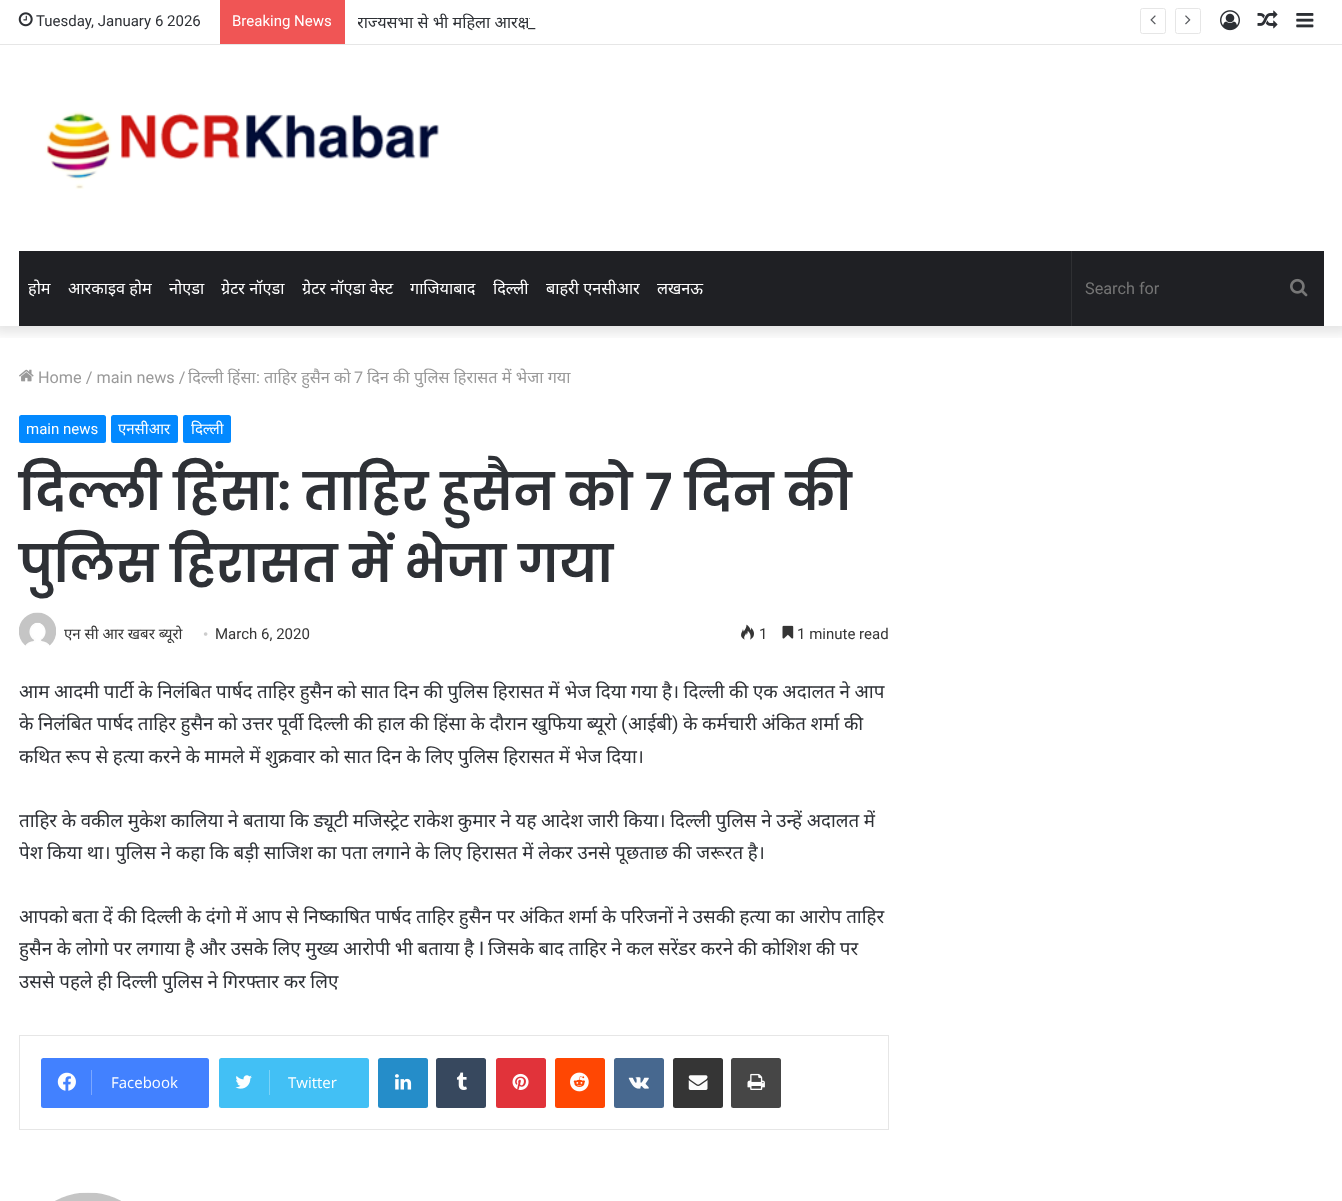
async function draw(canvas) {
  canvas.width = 1342;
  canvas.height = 1201;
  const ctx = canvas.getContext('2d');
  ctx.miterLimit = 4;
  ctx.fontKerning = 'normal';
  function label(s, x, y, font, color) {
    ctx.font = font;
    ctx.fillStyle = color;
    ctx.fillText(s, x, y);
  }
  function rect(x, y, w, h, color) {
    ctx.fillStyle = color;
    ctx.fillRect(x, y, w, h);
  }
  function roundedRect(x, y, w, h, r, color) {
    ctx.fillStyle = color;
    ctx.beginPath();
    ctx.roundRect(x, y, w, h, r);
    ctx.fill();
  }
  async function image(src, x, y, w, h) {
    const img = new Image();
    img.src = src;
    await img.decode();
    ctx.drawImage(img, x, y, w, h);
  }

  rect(0, 0, 1342, 1201, '#fff');
  ctx.save();
  ctx.beginPath();
  ctx.rect(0, 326, 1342, 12);
  ctx.clip();
  ctx.fillStyle = '#0000001a';
  ctx.filter = 'blur(6px)';
  ctx.beginPath();
  ctx.rect(-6, -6, 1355, 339);
  ctx.fill();
  ctx.filter = 'none';
  ctx.restore();
  rect(0, 44, 1342, 1, '#e6e6e6');
  await image('assets/img1.png', 18, 12, 15, 15);
  label('Tuesday, January 6 2026', 36, 26, '15px Roboto', '#2e3136');
  rect(220, 0, 125, 44, '#f05555');
  label('Breaking News', 232, 26, '15px Roboto', '#fff');
  ctx.save();
  ctx.beginPath();
  ctx.rect(358, 0, 653, 44);
  ctx.clip();
  label('राज्यसभा से भी महिला आरक्ष', 357, 28, '16.25px Noto Sans', '#2e3136');
  ctx.restore();
  rect(528, 17, 1, 3, '#fff');
  label('_', 528, 28, '16.25px Roboto', '#2e3136');
  ctx.beginPath();
  ctx.roundRect(1140.5, 8.5, 25, 25, 2);
  ctx.strokeStyle = '#e6e6e6';
  ctx.stroke();
  await image('assets/img2.png', 1150, 15, 6, 10);
  ctx.beginPath();
  ctx.roundRect(1175.5, 8.5, 25, 25, 2);
  ctx.stroke();
  await image('assets/img3.png', 1185, 15, 6, 10);
  await image('assets/img4.png', 1220, 10, 20, 21);
  await image('assets/img5.png', 1257, 10, 21, 19);
  await image('assets/img6.png', 1296, 13, 18, 15);
  await image('assets/img7.png', 45, 111, 394, 78);
  rect(19, 251, 1305, 75, '#1f2024');
  label('होम', 28, 294, '16.25px Noto Sans', '#fff');
  label('आरकाइव होम', 68, 294, '16.25px Noto Sans', '#fff');
  label('नोएडा', 169, 294, '16.25px Noto Sans', '#fff');
  label('ग्रेटर नॉएडा', 221, 294, '16.25px Noto Sans', '#fff');
  label('ग्रेटर नॉएडा वेस्ट', 302, 294, '16.25px Noto Sans', '#fff');
  label('गाजियाबाद', 410, 294, '16.25px Noto Sans', '#fff');
  label('दिल्ली', 493, 294, '16.25px Noto Sans', '#fff');
  label('बाहरी एनसीआर', 546, 294, '16.25px Noto Sans', '#fff');
  label('लखनऊ', 657, 294, '16.25px Noto Sans', '#fff');
  rect(1071, 251, 1, 75, '#2f3033');
  label('Search for', 1085, 294, '16.25px Roboto', '#757575');
  await image('assets/img8.png', 1290, 278, 18, 19);
  await image('assets/img9.png', 19, 369, 15, 13);
  label('Home / main news /', 38, 383, '16.25px Roboto', '#9a9a9a');
  label('दिल्ली हिंसा', 188, 383, '16.25px Noto Sans', '#9a9a9a');
  label(':', 256, 383, '16.25px Roboto', '#9a9a9a');
  label('ताहिर हुसैन को', 264, 383, '16.25px Noto Sans', '#9a9a9a');
  label('7', 354, 383, '16.25px Roboto', '#9a9a9a');
  label('दिन की पुलिस हिरासत में भेजा गया', 367, 383, '16.25px Noto Sans', '#9a9a9a');
  roundedRect(19, 415, 87, 28, 2.5, '#0389ff');
  label('main news', 26, 434, '15px Roboto', '#fff');
  roundedRect(111, 415, 67, 28, 2.5, '#0389ff');
  label('एनसीआर', 118, 434, '15px Noto Sans', '#fff');
  roundedRect(183, 415, 48, 28, 2.5, '#0389ff');
  label('दिल्ली', 191, 434, '15px Noto Sans', '#fff');
  label('दिल्ली हिंसा: ताहिर हुसैन को 7 दिन की', 19, 510, '600 51.25px Poppins', '#2e3136');
  label('पुलिस हिरासत में भेजा गया', 19, 582, '600 51.25px Poppins', '#2e3136');
  await image('assets/img10.png', 19, 612, 37, 34);
  label('एन सी आर खबर ब्यूरो', 64, 639, '15px Noto Sans', '#353535');
  label('•', 203, 639, '15px Liberation Serif', '#cdcdcd');
  label('March 6, 2020', 215, 639, '15px Roboto', '#353535');
  await image('assets/img11.png', 741, 624, 13, 16);
  label('1', 759, 639, '15px Roboto', '#353535');
  await image('assets/img12.png', 782, 625, 12, 14);
  label('1 minute read', 797, 639, '15px Roboto', '#353535');
  ctx.wordSpacing = '-0.25px';
  label('आम आदमी पार्टी के निलंबित पार्षद', 19, 698, '18.75px Noto Sans', '#2e3136');
  label('ताहिर हुसैन', 257, 698, '18.75px Noto Sans', '#2e3136');
  label('को सात दिन की पुलिस हिरासत में भेज दिया गया है। दिल्ली की एक अदालत ने आप', 337, 698, '18.75px Noto Sans', '#2e3136');
  label('के निलंबित पार्षद ताहिर हुसैन को उत्तर पूर्वी दिल्ली की हाल की हिंसा के दौरान खुफिया ब्यूरो', 19, 730, '18.75px Noto Sans', '#2e3136');
  ctx.wordSpacing = '0px';
  label('(', 621, 730, '18.75px Roboto', '#2e3136');
  label('आईबी', 628, 730, '18.75px Noto Sans', '#2e3136');
  label(')', 672, 730, '18.75px Roboto', '#2e3136');
  ctx.wordSpacing = '-0.25px';
  label('के कर्मचारी अंकित शर्मा की', 683, 730, '18.75px Noto Sans', '#2e3136');
  label('कथित रूप से हत्या करने के मामले में शुक्रवार को सात दिन के लिए पुलिस हिरासत में भेज दिया।', 19, 763, '18.75px Noto Sans', '#2e3136');
  label('ताहिर के वकील मुकेश कालिया ने बताया कि ड्यूटी मजिस्ट्रेट राकेश कुमार ने यह आदेश जारी किया। दिल्ली पुलिस ने उन्हें अदालत में', 19, 827, '18.75px Noto Sans', '#2e3136');
  label('पेश किया था। पुलिस ने कहा कि बड़ी साजिश का पता लगाने के लिए हिरासत में लेकर उनसे पूछताछ की जरूरत है।', 19, 859, '18.75px Noto Sans', '#2e3136');
  ctx.wordSpacing = '0px';
  label('आपको', 19, 923, '18.75px Noto Sans', '#2e3136');
  ctx.wordSpacing = '-0.25px';
  label('बता दें की दिल्ली के दंगो में आप से निष्काषित पार्षद ताहिर हुसैन पर अंकित शर्मा के परिजनों ने उसकी हत्या का आरोप ताहिर', 72, 923, '18.75px Noto Sans', '#2e3136');
  label('हुसैन के लोगो पर लगाया है और उसके लिए मुख्य आरोपी भी बताया है', 19, 955, '18.75px Noto Sans', '#2e3136');
  ctx.wordSpacing = '0px';
  label('I', 479, 955, '18.75px Roboto', '#2e3136');
  ctx.wordSpacing = '-0.25px';
  label('जिसके बाद ताहिर ने कल सरेंडर करने की कोशिश की पर', 488, 955, '18.75px Noto Sans', '#2e3136');
  label('उससे पहले ही दिल्ली पुलिस ने गिरफ्तार कर लिए', 19, 988, '18.75px Noto Sans', '#2e3136');
  ctx.strokeRect(19.5, 1035.5, 869, 94);
  roundedRect(41, 1058, 168, 50, 2.5, '#4281ff');
  await image('assets/img13.png', 57, 1072, 19, 19);
  rect(91, 1070, 1, 25, '#7ba7ff');
  ctx.wordSpacing = '0px';
  label('Facebook', 111, 1088, '15px Open Sans', '#fff');
  roundedRect(219, 1058, 150, 50, 2.5, '#42c0f5');
  await image('assets/img14.png', 235, 1075, 17, 14);
  rect(269, 1070, 1, 25, '#7bd3f8');
  label('Twitter', 288, 1088, '15px Open Sans', '#fff');
  roundedRect(378, 1058, 50, 50, 2.5, '#258dc9');
  await image('assets/img15.png', 395, 1074, 17, 16);
  roundedRect(436, 1058, 50, 50, 2.5, '#37485e');
  await image('assets/img16.png', 456, 1072, 11, 18);
  roundedRect(496, 1058, 50, 50, 2.5, '#e1333a');
  await image('assets/img17.png', 512, 1073, 17, 17);
  roundedRect(555, 1058, 50, 50, 2.5, '#ff4703');
  await image('assets/img18.png', 570, 1072, 19, 20);
  roundedRect(614, 1058, 50, 50, 2.5, '#47688f');
  await image('assets/img19.png', 628, 1077, 21, 12);
  roundedRect(673, 1058, 50, 50, 2.5, '#353535');
  await image('assets/img20.png', 688, 1075, 20, 15);
  roundedRect(731, 1058, 50, 50, 2.5, '#464646');
  await image('assets/img21.png', 747, 1073, 18, 17);
  await image('assets/img22.png', 55, 1192, 66, 9);
}

draw(document.querySelector('canvas'));
